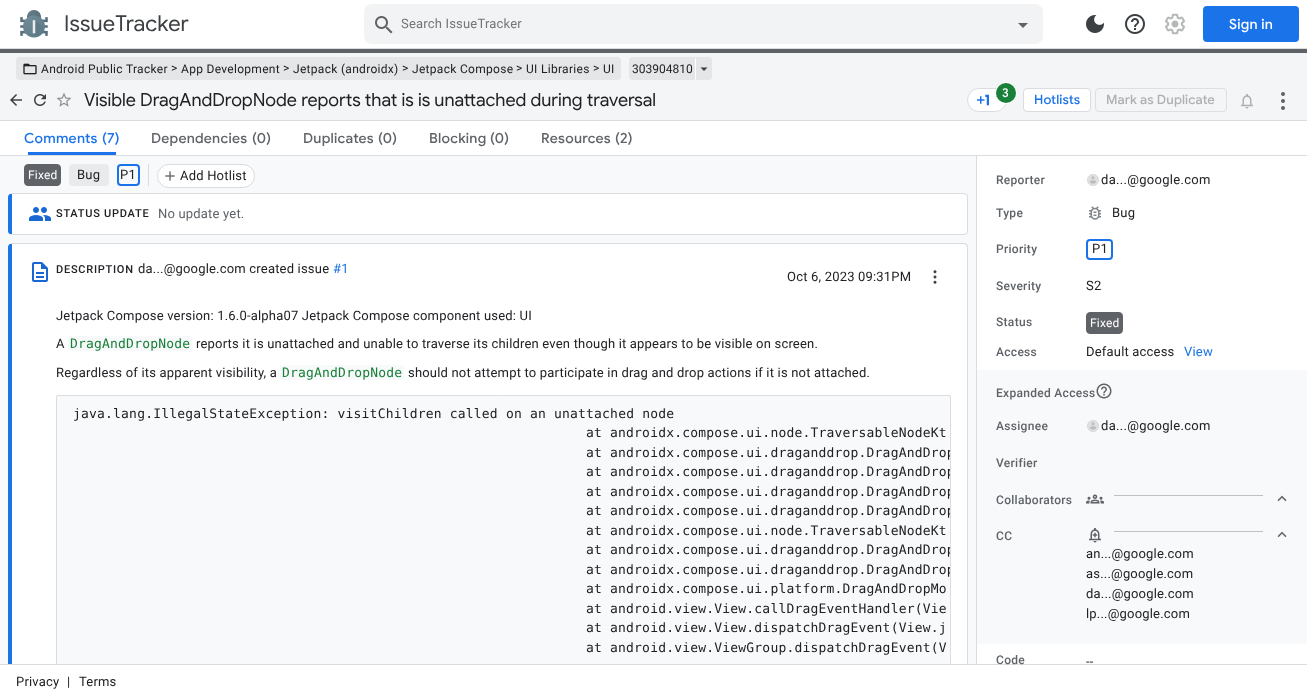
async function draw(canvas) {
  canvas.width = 1307;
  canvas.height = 699;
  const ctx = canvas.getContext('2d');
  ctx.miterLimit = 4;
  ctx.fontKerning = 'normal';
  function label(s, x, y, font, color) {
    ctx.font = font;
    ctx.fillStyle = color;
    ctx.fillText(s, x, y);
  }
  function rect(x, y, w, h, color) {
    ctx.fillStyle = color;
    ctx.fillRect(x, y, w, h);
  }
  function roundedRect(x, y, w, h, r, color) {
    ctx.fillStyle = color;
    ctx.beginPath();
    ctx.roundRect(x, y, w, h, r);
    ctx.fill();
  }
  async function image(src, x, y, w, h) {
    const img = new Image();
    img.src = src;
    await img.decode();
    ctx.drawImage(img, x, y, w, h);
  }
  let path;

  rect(0, 0, 1307, 699, '#fff');
  await image('assets/img1.png', 20, 10, 28, 28);
  ctx.letterSpacing = '0.1px';
  label('IssueTracker', 64, 31, '22px Google Sans', '#3c4043');
  roundedRect(364, 4, 679, 40, 8, '#f1f3f4');
  await image('assets/img2.png', 375, 16, 18, 18);
  ctx.letterSpacing = '0.19px';
  label('Search IssueTracker', 401, 28, '13px Roboto', '#757575');
  ctx.fillStyle = '#5f6368';
  path = new Path2D('M1018 23L1023 28L1028 23Z');
  ctx.fill(path);
  await image('assets/img3.png', 1086, 15, 18, 18);
  await image('assets/img4.png', 1125, 14, 20, 20);
  await image('assets/img5.png', 1165, 13, 20, 22);
  roundedRect(1203, 6, 96, 36, 4, '#1a73e8');
  ctx.letterSpacing = '0.25px';
  label('Sign in', 1229, 29, '500 14px Google Sans', '#fff');
  rect(0, 48, 1307, 1, '#dadce0');
  rect(0, 53, 1307, 67, '#f4f5f6');
  rect(0, 49, 1307, 4, '#5f6368');
  rect(0, 120, 1307, 1, '#dadce0');
  roundedRect(16, 57, 605, 23, 4, '#e5e6e7');
  await image('assets/img6.png', 23, 63, 14, 12);
  ctx.letterSpacing = '0.3px';
  label('Android Public Tracker', 41, 73, '12px Roboto', '#202124');
  label('>', 171, 72, '12px Roboto', '#202124');
  label('App Development', 181, 73, '12px Roboto', '#202124');
  label('>', 283, 72, '12px Roboto', '#202124');
  label('Jetpack (androidx)', 293, 73, '12px Roboto', '#202124');
  label('>', 402, 72, '12px Roboto', '#202124');
  label('Jetpack Compose', 412, 73, '12px Roboto', '#202124');
  label('>', 516, 72, '12px Roboto', '#202124');
  label('UI Libraries', 526, 73, '12px Roboto', '#202124');
  label('>', 593, 72, '12px Roboto', '#202124');
  label('UI', 603, 73, '12px Roboto', '#202124');
  roundedRect(629, 57, 83, 23, 4, '#e5e6e7');
  ctx.letterSpacing = '0px';
  label('303904810', 632, 73, '12px Roboto', '#202124');
  rect(695, 58, 1, 22, '#fff');
  ctx.fillStyle = '#3c4043';
  path = new Path2D('M700.5 67.5L704 71L707.5 67.5Z');
  ctx.fill(path);
  await image('assets/img7.png', 10, 94, 12, 12);
  await image('assets/img8.png', 34, 94, 12, 12);
  await image('assets/img9.png', 56, 92, 16, 15);
  label('Visible DragAndDropNode reports that is is unattached during traversal', 84, 106, '18px Google Sans', '#202124');
  ctx.fillStyle = '#fff';
  ctx.beginPath();
  ctx.roundRect(967.5, 88.5, 39, 23, 11.5);
  ctx.fill();
  ctx.strokeStyle = '#dadce0';
  ctx.stroke();
  ctx.beginPath();
  ctx.arc(1006, 93, 10.5, 0, 2 * Math.PI);
  ctx.strokeStyle = '#fff';
  ctx.stroke();
  ctx.fillStyle = '#188038';
  ctx.beginPath();
  ctx.arc(1006, 93, 10, 0, 2 * Math.PI);
  ctx.fill();
  ctx.letterSpacing = '0.1px';
  label('3', 1002, 97, '500 12px Google Sans', '#fff');
  await image('assets/img10.png', 977, 94, 12, 12);
  ctx.beginPath();
  ctx.roundRect(1023.5, 88.5, 67, 23, 3.5);
  ctx.fill();
  ctx.strokeStyle = '#dadce0';
  ctx.stroke();
  label('Hotlists', 1034, 104, '500 13px Google Sans', '#1a73e8');
  ctx.beginPath();
  ctx.roundRect(1095.5, 88.5, 131, 23, 3.5);
  ctx.strokeStyle = '#dedfe1';
  ctx.stroke();
  label('Mark as Duplicate', 1106, 104, '500 13px Google Sans', '#aeb0b2');
  await image('assets/img11.png', 1241, 94, 12, 15);
  await image('assets/img12.png', 1281, 92, 4, 18);
  rect(0, 155, 1307, 1, '#dadce0');
  ctx.letterSpacing = '0.25px';
  label('Comments', 24, 143, '500 14px Google Sans', '#1a73e8');
  label('(7)', 102, 143, '500 14px Google Sans', '#1a73e8');
  rect(28, 152, 88, 3, '#1a73e8');
  label('Dependencies', 151, 143, '500 14px Google Sans', '#5f6368');
  label('(0)', 252, 143, '500 14px Google Sans', '#5f6368');
  label('Duplicates', 303, 143, '500 14px Google Sans', '#5f6368');
  label('(0)', 378, 143, '500 14px Google Sans', '#5f6368');
  label('Blocking', 429, 143, '500 14px Google Sans', '#5f6368');
  label('(0)', 490, 143, '500 14px Google Sans', '#5f6368');
  label('Resources', 541, 143, '500 14px Google Sans', '#5f6368');
  label('(2)', 615, 143, '500 14px Google Sans', '#5f6368');
  rect(0, 156, 976, 508, '#f8f9fa');
  rect(148, 164, 1, 22, '#dadce0');
  ctx.fillStyle = '#5f6368';
  ctx.beginPath();
  ctx.roundRect(24.5, 164.5, 36, 21, 3.5);
  ctx.fill();
  ctx.strokeStyle = '#5f6368';
  ctx.stroke();
  ctx.letterSpacing = '0.19px';
  label('Fixed', 28, 179, '12px Roboto', '#fff');
  roundedRect(69, 164, 40, 22, 4, '#e9eaeb');
  label('Bug', 77, 179, '13px Roboto', '#202124');
  ctx.beginPath();
  ctx.roundRect(118, 165, 21, 20, 3);
  ctx.strokeStyle = '#1a73e8';
  ctx.lineWidth = 2;
  ctx.stroke();
  label('P1', 120, 179, '13px Roboto', '#202124');
  ctx.fillStyle = '#fff';
  ctx.beginPath();
  ctx.roundRect(157.5, 164.5, 97, 23, 11.5);
  ctx.fill();
  ctx.strokeStyle = '#dadce0';
  ctx.lineWidth = 1;
  ctx.stroke();
  await image('assets/img13.png', 165, 171, 10, 10);
  label('Add Hotlist', 180, 180, '13px Roboto', '#202124');
  ctx.fillStyle = '#fff';
  path = new Path2D('M12 194H964C966 194 967 195 967 197V231C967 233 966 234 964 234H12Z');
  ctx.fill(path);
  ctx.fillStyle = '#dadce0';
  path = new Path2D('M12 193L10 194H12H964L966 195L967 194L964 193Z');
  ctx.fill(path);
  path = new Path2D('M968 231V197C968 196 967.5 195 967 194L966 195C967 195 967 196 967 197V231C967 232 967 233 966 233L967 234C967.5 233 968 232 968 231Z');
  ctx.fill(path);
  path = new Path2D('M12 235H964L967 234L966 233L964 234H12H10Z');
  ctx.fill(path);
  ctx.fillStyle = '#1a73e8';
  path = new Path2D('M12 194H10C9 194 8 196 8 197V231C8 232 9 234 10 234H12Z');
  ctx.fill(path);
  await image('assets/img14.png', 29, 207, 22, 14);
  ctx.letterSpacing = '0.75px';
  label('STATUS UPDATE', 56, 217, '500 11px Roboto', '#202124');
  ctx.letterSpacing = '0.19px';
  label('No update yet.', 158, 218, '13px Roboto', '#5f6368');
  ctx.save();
  ctx.beginPath();
  ctx.rect(0, 156, 976, 508);
  ctx.clip();
  ctx.fillStyle = '#fff';
  path = new Path2D('M12 244H964C966 244 967 245 967 247V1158C967 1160 966 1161 964 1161H12Z');
  ctx.fill(path);
  ctx.restore();
  ctx.fillStyle = '#dadce0';
  path = new Path2D('M12 243L10 244H12H964L966 245L967 244L964 243Z');
  ctx.fill(path);
  ctx.save();
  ctx.beginPath();
  ctx.rect(0, 156, 976, 508);
  ctx.clip();
  path = new Path2D('M968 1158V247L967 244L966 245L967 247V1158L966 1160L967 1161Z');
  ctx.fill(path);
  ctx.fillStyle = '#1a73e8';
  path = new Path2D('M12 244H10C9 244 8 246 8 247V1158C8 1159 9 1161 10 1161H12Z');
  ctx.fill(path);
  ctx.restore();
  await image('assets/img15.png', 32, 262, 16, 20);
  ctx.letterSpacing = '0.75px';
  label('DESCRIPTION', 56, 273, '500 11px Roboto', '#202124');
  ctx.letterSpacing = '0.19px';
  label('da...@google.com created issue', 138, 273, '13px Roboto', '#202124');
  label('#1', 333, 273, '13px Roboto', '#1a73e8');
  label('Oct 6, 2023 09:31PM', 787, 281, '13px Roboto', '#202124');
  await image('assets/img16.png', 933, 270, 4, 14);
  label('Jetpack Compose version: 1.6.0-alpha07 Jetpack Compose component used: UI', 56, 320, '13px Roboto', '#202124');
  label('A', 56, 348, '13px Roboto', '#202124');
  roundedRect(68, 336, 124, 15, 2, '#f8f9fa');
  label('DragAndDropNode', 70, 348, '13px DejaVu Sans Mono', '#188038');
  label('reports it is unattached and unable to traverse its children even though it appears to be visible on screen.', 196, 348, '13px Roboto', '#202124');
  label('Regardless of its apparent visibility, a', 56, 377, '13px Roboto', '#202124');
  roundedRect(280, 365, 124, 15, 2, '#f8f9fa');
  label('DragAndDropNode', 282, 377, '13px DejaVu Sans Mono', '#188038');
  label('should not attempt to participate in drag and drop actions if it is not attached.', 408, 377, '13px Roboto', '#202124');
  ctx.fillStyle = '#f8f9fa';
  ctx.beginPath();
  ctx.roundRect(56, 395, 895, 269, [2, 2, 0, 0]);
  ctx.fill();
  rect(0, 664, 1307, 1, '#dadce0');
  label('Privacy', 16, 686, '13px Roboto', '#202124');
  ctx.save();
  ctx.beginPath();
  ctx.rect(0, 156, 976, 508);
  ctx.clip();
  ctx.beginPath();
  ctx.roundRect(56.5, 395.5, 894, 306, 1.5);
  ctx.stroke();
  ctx.restore();
  label('java.lang.IllegalStateException: visitChildren called on an unattached node', 73, 418, '13px DejaVu Sans Mono', '#202124');
  label('at androidx.compose.ui.node.TraversableNodeKt', 586, 437, '13px DejaVu Sans Mono', '#202124');
  ctx.save();
  ctx.beginPath();
  ctx.roundRect(57, 396, 893, 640, 1);
  ctx.clip();
  label('at androidx.compose.ui.draganddrop.DragAndDrop', 586, 457, '13px DejaVu Sans Mono', '#202124');
  label('at androidx.compose.ui.draganddrop.DragAndDrop', 586, 476, '13px DejaVu Sans Mono', '#202124');
  label('at androidx.compose.ui.draganddrop.DragAndDrop', 586, 496, '13px DejaVu Sans Mono', '#202124');
  label('at androidx.compose.ui.draganddrop.DragAndDrop', 586, 515, '13px DejaVu Sans Mono', '#202124');
  ctx.restore();
  label('at androidx.compose.ui.node.TraversableNodeKt', 586, 535, '13px DejaVu Sans Mono', '#202124');
  ctx.save();
  ctx.beginPath();
  ctx.roundRect(57, 396, 893, 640, 1);
  ctx.clip();
  label('at androidx.compose.ui.draganddrop.DragAndDrop', 586, 554, '13px DejaVu Sans Mono', '#202124');
  label('at androidx.compose.ui.draganddrop.DragAndDrop', 586, 574, '13px DejaVu Sans Mono', '#202124');
  ctx.restore();
  label('at androidx.compose.ui.platform.DragAndDropMo', 586, 593, '13px DejaVu Sans Mono', '#202124');
  label('at android.view.View.callDragEventHandler(Vie', 586, 613, '13px DejaVu Sans Mono', '#202124');
  label('at android.view.View.dispatchDragEvent(View.j', 586, 632, '13px DejaVu Sans Mono', '#202124');
  label('at android.view.ViewGroup.dispatchDragEvent(V', 586, 652, '13px DejaVu Sans Mono', '#202124');
  rect(976, 156, 1, 508, '#dadce0');
  ctx.letterSpacing = '0.3px';
  label('Reporter', 996, 184, '500 12px Roboto', '#5f6368');
  await image('assets/img17.png', 1087, 174, 12, 12);
  ctx.beginPath();
  ctx.arc(1093, 180, 5.5, 0, 2 * Math.PI);
  ctx.stroke();
  label('da...@google.com', 1101, 184, '13px Roboto', '#202124');
  label('Type', 996, 217, '500 12px Roboto', '#5f6368');
  await image('assets/img18.png', 1089, 206, 12, 14);
  ctx.letterSpacing = '0.19px';
  label('Bug', 1112, 217, '13px Roboto', '#202124');
  ctx.letterSpacing = '0.3px';
  label('Priority', 996, 253, '500 12px Roboto', '#5f6368');
  ctx.beginPath();
  ctx.roundRect(1087, 240, 25, 19, 3);
  ctx.strokeStyle = '#1a73e8';
  ctx.lineWidth = 2;
  ctx.stroke();
  ctx.letterSpacing = '0.19px';
  label('P1', 1092, 253, '13px Roboto', '#202124');
  ctx.letterSpacing = '0.3px';
  label('Severity', 996, 290, '500 12px Roboto', '#5f6368');
  ctx.letterSpacing = '0.19px';
  label('S2', 1086, 290, '13px Roboto', '#202124');
  ctx.letterSpacing = '0.3px';
  label('Status', 996, 326, '500 12px Roboto', '#5f6368');
  ctx.beginPath();
  ctx.roundRect(1086.5, 312.5, 36, 21, 3.5);
  ctx.fill();
  ctx.strokeStyle = '#5f6368';
  ctx.lineWidth = 1;
  ctx.stroke();
  ctx.letterSpacing = '0.19px';
  label('Fixed', 1090, 327, '12px Roboto', '#fff');
  ctx.letterSpacing = '0.3px';
  label('Access', 996, 356, '500 12px Roboto', '#5f6368');
  ctx.letterSpacing = '0.19px';
  label('Default access', 1086, 356, '13px Roboto', '#202124');
  label('View', 1184, 356, '13px Roboto', '#1a73e8');
  rect(977, 370, 330, 274, '#f8f9fa');
  ctx.letterSpacing = '0.3px';
  label('Expanded Access', 996, 397, '500 12px Roboto', '#5f6368');
  await image('assets/img19.png', 1096, 383, 16, 16);
  label('Assignee', 996, 430, '500 12px Roboto', '#5f6368');
  await image('assets/img20.png', 1087, 420, 12, 12);
  ctx.beginPath();
  ctx.arc(1093, 426, 5.5, 0, 2 * Math.PI);
  ctx.strokeStyle = '#dadce0';
  ctx.stroke();
  label('da...@google.com', 1101, 430, '13px Roboto', '#202124');
  label('Verifier', 996, 467, '500 12px Roboto', '#5f6368');
  label('Collaborators', 996, 504, '500 12px Roboto', '#5f6368');
  await image('assets/img21.png', 1086, 494, 18, 10);
  rect(1114, 495, 149, 1, '#bdc1c6');
  await image('assets/img22.png', 1277, 495, 10, 7);
  label('CC', 996, 540, '500 12px Roboto', '#5f6368');
  await image('assets/img23.png', 1089, 527, 12, 16);
  rect(1114, 531, 149, 1, '#bdc1c6');
  await image('assets/img22.png', 1277, 531, 10, 7);
  ctx.letterSpacing = '0.19px';
  label('an...@google.com', 1086, 558, '13px Roboto', '#202124');
  label('as...@google.com', 1086, 578, '13px Roboto', '#202124');
  label('da...@google.com', 1086, 598, '13px Roboto', '#202124');
  label('lp...@google.com', 1086, 618, '13px Roboto', '#202124');
  ctx.letterSpacing = '0.3px';
  label('Code', 996, 664, '500 12px Roboto', '#5f6368');
  ctx.letterSpacing = '0.19px';
  label('--', 1086, 666, '13px Roboto', '#202124');
  label('|', 67, 686, '13px Roboto', '#202124');
  label('Terms', 79, 686, '13px Roboto', '#202124');
}

draw(document.querySelector('canvas'));
